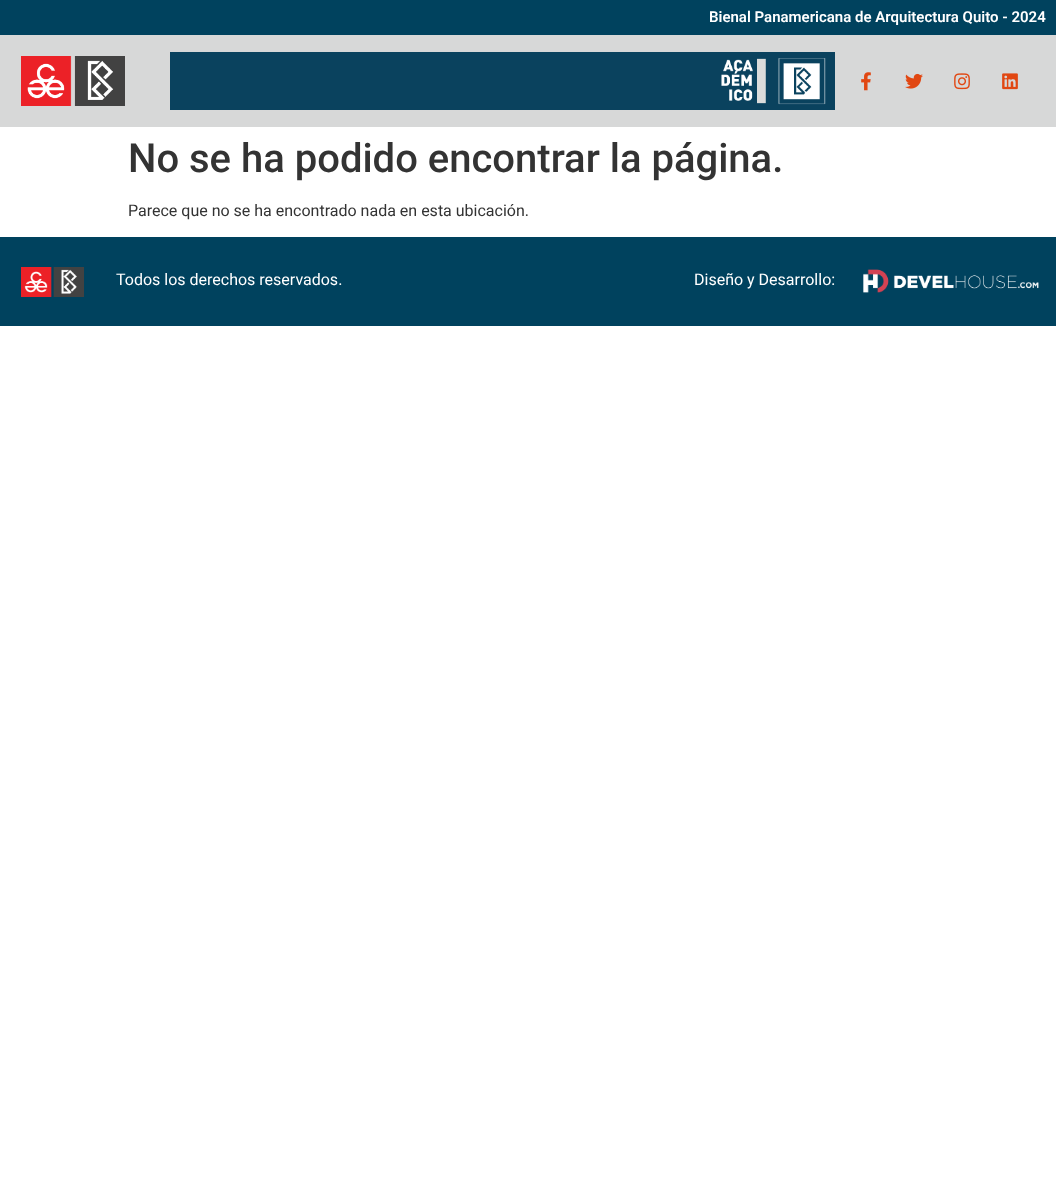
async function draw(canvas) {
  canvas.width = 1056;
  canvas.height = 1180;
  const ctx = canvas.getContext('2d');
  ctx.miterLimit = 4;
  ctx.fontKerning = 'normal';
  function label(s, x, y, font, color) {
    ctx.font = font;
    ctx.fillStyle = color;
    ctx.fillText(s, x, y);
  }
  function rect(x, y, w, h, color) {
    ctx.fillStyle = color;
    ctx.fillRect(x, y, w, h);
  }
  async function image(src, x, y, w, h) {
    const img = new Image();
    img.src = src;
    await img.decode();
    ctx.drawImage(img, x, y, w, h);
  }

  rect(0, 0, 1056, 1180, '#fff');
  rect(0, 0, 1056, 35, '#00425e');
  label('Bienal Panamericana de Arquitectura Quito - 2024', 709, 22, '600 15px Roboto', '#fff');
  rect(0, 35, 1056, 92, '#d7d8d8');
  await image('assets/img1.png', 21, 56, 104, 50);
  await image('assets/img2.png', 170, 52, 665, 58);
  await image('assets/img3.png', 861, 72, 10, 19);
  await image('assets/img4.png', 905, 73, 18, 16);
  await image('assets/img5.png', 954, 73, 16, 17);
  await image('assets/img6.png', 1002, 73, 16, 17);
  label('No se ha podido encontrar la página.', 128, 172, '500 40px Roboto', '#333');
  label('Parece que no se ha encontrado nada en esta ubicación.', 128, 216, '16px Roboto', '#333');
  rect(0, 237, 1056, 89, '#00425e');
  await image('assets/img7.png', 21, 267, 63, 30);
  label('Todos los derechos reservados.', 116, 285, '16px Roboto', '#fff');
  label('Diseño y Desarrollo:', 694, 285, '16px Roboto', '#fff');
  await image('assets/img8.png', 863, 269, 176, 24);
}

draw(document.querySelector('canvas'));
